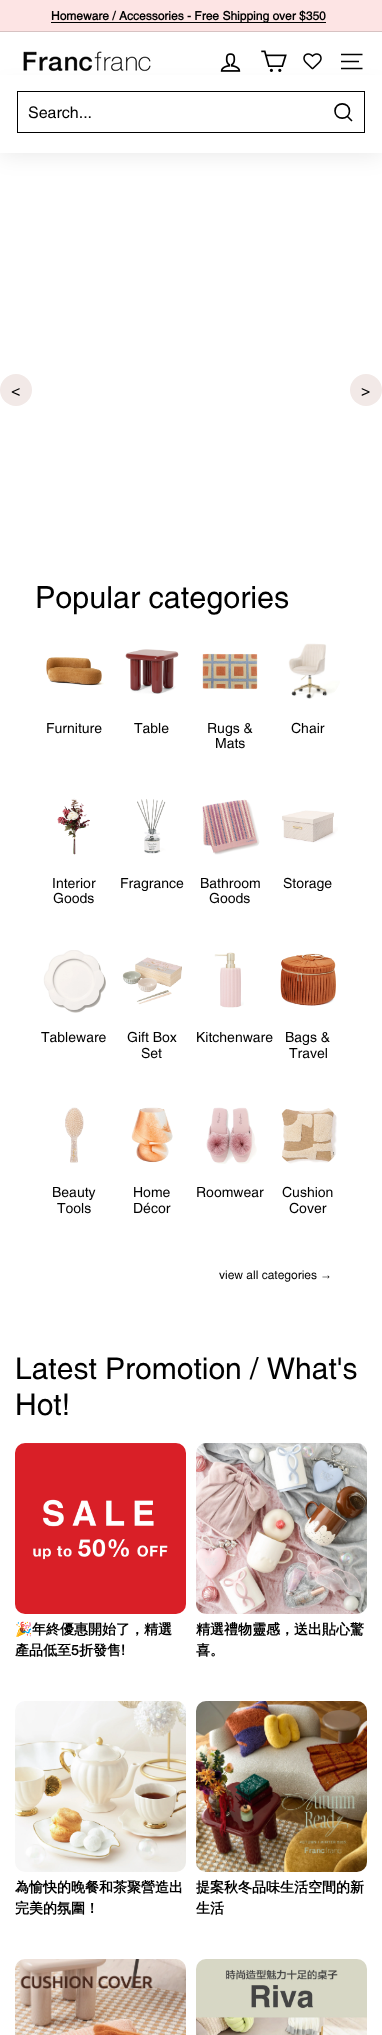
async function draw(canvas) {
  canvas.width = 382;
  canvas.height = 2035;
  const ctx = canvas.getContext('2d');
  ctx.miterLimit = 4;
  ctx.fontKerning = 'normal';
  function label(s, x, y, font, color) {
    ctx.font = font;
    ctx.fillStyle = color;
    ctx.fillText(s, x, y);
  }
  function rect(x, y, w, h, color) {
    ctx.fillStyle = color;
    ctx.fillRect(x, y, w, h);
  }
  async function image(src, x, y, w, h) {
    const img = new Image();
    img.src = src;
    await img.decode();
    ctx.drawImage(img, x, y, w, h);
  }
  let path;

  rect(0, 0, 382, 2035, '#fff');
  rect(0, 0, 382, 31, '#fde4e4');
  rect(51, 22, 275, 1, '#000');
  label('Homeware / Accessories - Free Shipping over $350', 51, 20, 'bold 12px Helvetica', '#000');
  rect(0, 31, 382, 1, '#d7c2c2');
  ctx.fillStyle = '#0000001a';
  ctx.filter = 'blur(12.5px)';
  ctx.beginPath();
  ctx.rect(0, 91, 382, 62);
  ctx.fill();
  ctx.filter = 'none';
  await image('assets/img1.png', 23, 51, 128, 21);
  await image('assets/img2.png', 220, 53, 21, 19);
  await image('assets/img3.png', 261, 50, 26, 22);
  await image('assets/img4.png', 303, 53, 19, 17);
  path = new Path2D('M341 54.5H362.5M341 61.5H359M341 68.5H362.5');
  ctx.strokeStyle = '#000';
  ctx.lineWidth = 1.7;
  ctx.stroke(path);
  rect(0, 75, 382, 78, '#fff');
  ctx.lineWidth = 1;
  ctx.strokeRect(17.5, 91.5, 347, 41);
  label('Search...', 28, 118, '16px Helvetica', '#000');
  path = new Path2D('M349.5 111C349.5 120.5 335 120.5 335 111C335 101.5 349.5 101.5 349.5 111ZM352 121L347.5 116.5');
  ctx.lineWidth = 1.6;
  ctx.stroke(path);
  ctx.fillStyle = '#f2e9e7';
  ctx.beginPath();
  ctx.arc(16, 390, 16, 0, 2 * Math.PI);
  ctx.fill();
  label('<', 11, 396, '16px Helvetica', '#000');
  ctx.fillStyle = '#f2e9e7';
  ctx.beginPath();
  ctx.arc(366, 390, 16, 0, 2 * Math.PI);
  ctx.fill();
  label('>', 361, 396, '16px Helvetica', '#000');
  label('Popular categories', 35, 608, '30.5px Helvetica', '#000');
  await image('assets/img5.png', 46, 657, 58, 29);
  label('Furniture', 46, 733, '14px Helvetica', '#000');
  await image('assets/img6.png', 125, 649, 54, 45);
  label('Table', 134, 733, '14px Helvetica', '#000');
  await image('assets/img7.png', 202, 653, 56, 37);
  label('Rugs &', 207, 733, '14px Helvetica', '#000');
  label('Mats', 215, 748, '14px Helvetica', '#000');
  await image('assets/img8.png', 288, 643, 52, 56);
  label('Chair', 291, 733, '14px Helvetica', '#000');
  await image('assets/img9.png', 57, 798, 33, 57);
  label('Interior', 52, 888, '14px Helvetica', '#000');
  label('Goods', 53, 903, '14px Helvetica', '#000');
  await image('assets/img10.png', 137, 799, 29, 55);
  label('Fragrance', 120, 888, '14px Helvetica', '#000');
  await image('assets/img11.png', 202, 799, 58, 56);
  label('Bathroom', 200, 888, '14px Helvetica', '#000');
  label('Goods', 209, 903, '14px Helvetica', '#000');
  await image('assets/img12.png', 282, 810, 56, 33);
  label('Storage', 283, 888, '14px Helvetica', '#000');
  await image('assets/img13.png', 43, 950, 63, 63);
  label('Tableware', 41, 1042, '14px Helvetica', '#000');
  await image('assets/img14.png', 122, 957, 60, 48);
  label('Gift Box', 127, 1042, '14px Helvetica', '#000');
  label('Set', 141, 1058, '14px Helvetica', '#000');
  await image('assets/img15.png', 214, 952, 30, 56);
  label('Kitchenware', 196, 1042, '14px Helvetica', '#000');
  await image('assets/img16.png', 280, 953, 56, 53);
  label('Bags &', 285, 1042, '14px Helvetica', '#000');
  label('Travel', 289, 1058, '14px Helvetica', '#000');
  await image('assets/img17.png', 65, 1107, 19, 56);
  label('Beauty', 52, 1197, '14px Helvetica', '#000');
  label('Tools', 57, 1213, '14px Helvetica', '#000');
  await image('assets/img18.png', 131, 1107, 42, 56);
  label('Home', 133, 1197, '14px Helvetica', '#000');
  label('Décor', 133, 1213, '14px Helvetica', '#000');
  await image('assets/img19.png', 206, 1107, 51, 57);
  label('Roomwear', 196, 1197, '14px Helvetica', '#000');
  await image('assets/img20.png', 281, 1108, 56, 56);
  label('Cushion', 282, 1197, '14px Helvetica', '#000');
  label('Cover', 289, 1213, '14px Helvetica', '#000');
  label('view all categories', 219, 1279, '12px Helvetica', '#000');
  label('→', 320, 1279, '12px Liberation Serif', '#000');
  label('Latest Promotion / What\'s', 15, 1379, '30px Helvetica', '#000');
  label('Hot!', 15, 1415, '30px Helvetica', '#000');
  await image('assets/img21.png', 15, 1443, 171, 171);
  label('🎉', 15, 1634, 'bold 14px Noto Color Emoji', '#000');
  label('年終優惠開始了，精選', 32, 1634, 'bold 14px WenQuanYi Zen Hei', '#000');
  label('產品低至', 15, 1655, 'bold 14px WenQuanYi Zen Hei', '#000');
  label('5', 71, 1655, 'bold 14px Helvetica', '#000');
  label('折發售', 79, 1655, 'bold 14px WenQuanYi Zen Hei', '#000');
  label('!', 121, 1655, 'bold 14px Helvetica', '#000');
  await image('assets/img22.png', 196, 1443, 171, 171);
  label('精選禮物靈感，送出貼心驚', 196, 1634, 'bold 14px WenQuanYi Zen Hei', '#000');
  label('喜。', 196, 1655, 'bold 14px WenQuanYi Zen Hei', '#000');
  await image('assets/img23.png', 15, 1701, 171, 171);
  label('為愉快的晚餐和茶聚營造出', 15, 1892, 'bold 14px WenQuanYi Zen Hei', '#000');
  label('完美的氛圍！', 15, 1913, 'bold 14px WenQuanYi Zen Hei', '#000');
  await image('assets/img24.png', 196, 1701, 171, 171);
  label('提案秋冬品味生活空間的新', 196, 1892, 'bold 14px WenQuanYi Zen Hei', '#000');
  label('生活', 196, 1913, 'bold 14px WenQuanYi Zen Hei', '#000');
  await image('assets/img25.png', 15, 1959, 171, 76);
  await image('assets/img26.png', 196, 1959, 171, 76);
}

draw(document.querySelector('canvas'));
